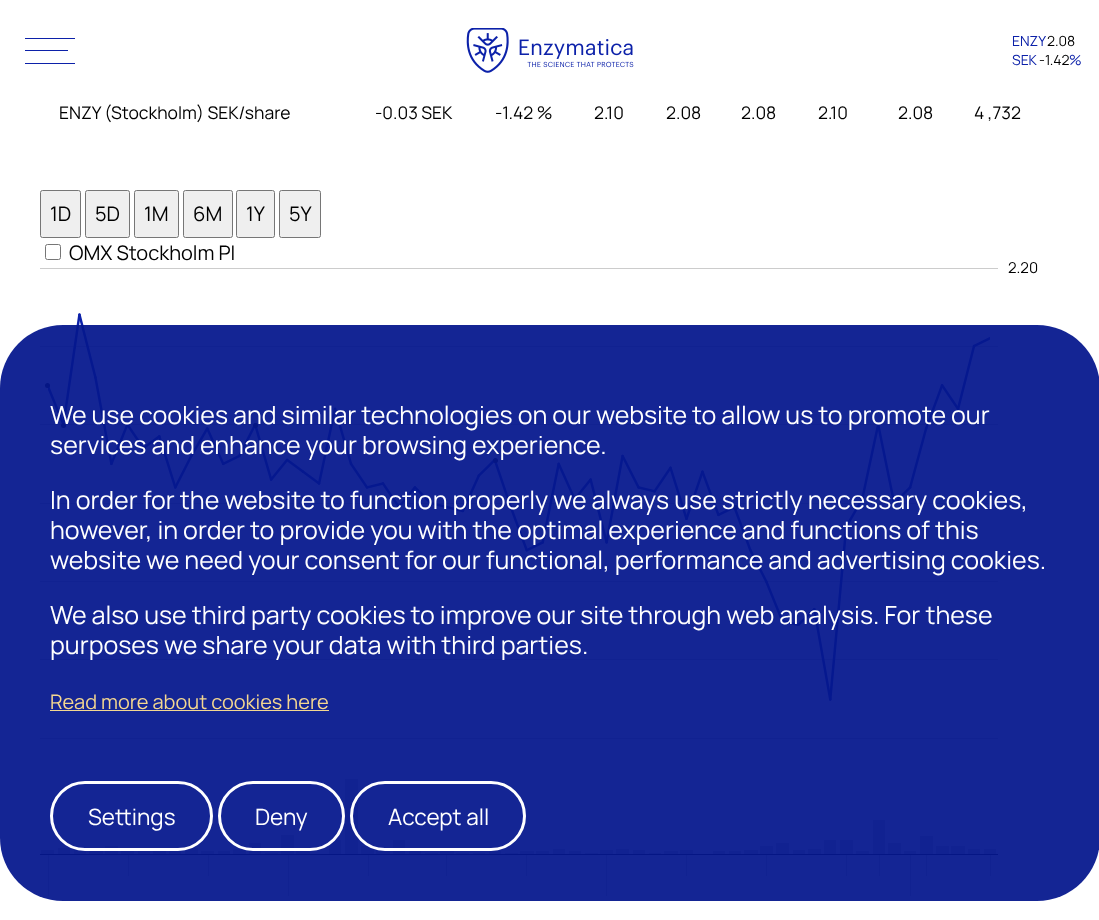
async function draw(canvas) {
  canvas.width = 1099
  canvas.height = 920
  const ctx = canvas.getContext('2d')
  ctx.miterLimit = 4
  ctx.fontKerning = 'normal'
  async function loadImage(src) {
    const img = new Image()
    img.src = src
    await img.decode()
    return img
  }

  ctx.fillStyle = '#fff'
  ctx.fillRect(0, 0, 1099, 920)
  ctx.fillStyle = '#0c21a9'
  ctx.fillRect(25, 38, 50, 1)
  ctx.fillRect(25, 63, 50, 1)
  ctx.fillRect(25, 50, 43, 1)
  ctx.drawImage(await loadImage('image0.png'), 466, 28, 168, 45)
  ctx.font = '14px Manrope'
  ctx.fillText('ENZY', 1012, 46)
  ctx.fillStyle = '#000'
  ctx.fillText('2.08', 1047, 46)
  ctx.fillStyle = '#0c21a9'
  ctx.fillText('SEK', 1012, 65)
  ctx.fillStyle = '#000'
  ctx.fillText('-1.42', 1039, 65)
  ctx.fillStyle = '#0c21a9'
  ctx.fillText('%', 1069, 65)
  ctx.font = '17.5px Manrope'
  ctx.fillStyle = '#000'
  ctx.fillText('ENZY (Stockholm) SEK/share', 59, 119)
  ctx.fillText('-0.03 SEK', 375, 119)
  ctx.fillText('-1.42 %', 495, 119)
  ctx.fillText('2.10', 594, 119)
  ctx.fillText('2.08', 666, 119)
  ctx.fillText('2.08', 741, 119)
  ctx.fillText('2.10', 818, 119)
  ctx.fillText('2.08', 898, 119)
  ctx.fillText('4 ,732', 974, 119)
  ctx.fillStyle = '#efefef'
  ctx.beginPath()
  ctx.roundRect(40.5, 190.5, 40, 47, 2)
  ctx.fill()
  ctx.strokeStyle = '#767676'
  ctx.stroke()
  ctx.font = '20px Manrope'
  ctx.fillStyle = '#000'
  ctx.fillText('1D', 50, 221)
  ctx.fillStyle = '#efefef'
  ctx.beginPath()
  ctx.roundRect(85.5, 190.5, 44, 47, 2)
  ctx.fill()
  ctx.stroke()
  ctx.fillStyle = '#000'
  ctx.fillText('5D', 95, 221)
  ctx.fillStyle = '#efefef'
  ctx.beginPath()
  ctx.roundRect(134.5, 190.5, 44, 47, 2)
  ctx.fill()
  ctx.stroke()
  ctx.fillStyle = '#000'
  ctx.fillText('1M', 144, 221)
  ctx.fillStyle = '#efefef'
  ctx.beginPath()
  ctx.roundRect(183.5, 190.5, 49, 47, 2)
  ctx.fill()
  ctx.stroke()
  ctx.fillStyle = '#000'
  ctx.fillText('6M', 193, 221)
  ctx.fillStyle = '#efefef'
  ctx.beginPath()
  ctx.roundRect(236.5, 190.5, 38, 47, 2)
  ctx.fill()
  ctx.stroke()
  ctx.fillStyle = '#000'
  ctx.fillText('1Y', 246, 221)
  ctx.fillStyle = '#efefef'
  ctx.beginPath()
  ctx.roundRect(279.5, 190.5, 41, 47, 2)
  ctx.fill()
  ctx.stroke()
  ctx.fillStyle = '#000'
  ctx.fillText('5Y', 289, 221)
  ctx.beginPath()
  ctx.roundRect(45.5, 244.5, 15, 15, 2)
  ctx.stroke()
  ctx.fillText('OMX Stockholm PI', 69, 260)
  ctx.fillStyle = '#ccc'
  ctx.fillRect(40, 738, 958, 1)
  ctx.fillRect(40, 268, 958, 1)
  ctx.fillRect(40, 346, 958, 1)
  ctx.fillRect(40, 424, 958, 1)
  ctx.fillRect(40, 503, 958, 1)
  ctx.fillRect(40, 581, 958, 1)
  ctx.fillRect(40, 659, 958, 1)
  ctx.font = '15px Manrope'
  ctx.fillStyle = '#000'
  ctx.fillText('2.20', 1008, 273)
  ctx.drawImage(await loadImage('image1.png'), 48, 313, 942, 388)
  ctx.beginPath()
  ctx.arc(47.5, 385.5, 2.5, 0, 2 * Math.PI)
  ctx.fill()
  ctx.beginPath()
  ctx.arc(63.5, 425.5, 2.5, 0, 2 * Math.PI)
  ctx.fill()
  ctx.beginPath()
  ctx.arc(255.5, 425.5, 2.5, 0, 2 * Math.PI)
  ctx.fill()
  ctx.beginPath()
  ctx.arc(143.5, 448.5, 2.5, 0, 2 * Math.PI)
  ctx.fill()
  ctx.beginPath()
  ctx.arc(495.5, 460.5, 2.5, 0, 2 * Math.PI)
  ctx.fill()
  ctx.beginPath()
  ctx.arc(735.5, 507.5, 2.5, 0, 2 * Math.PI)
  ctx.fill()
  ctx.fillStyle = '#ccc'
  ctx.fillRect(41, 850, 13, 4)
  ctx.fillRect(58, 848, 12, 6)
  ctx.fillRect(74, 850, 12, 4)
  ctx.fillRect(89, 851, 14, 3)
  ctx.fillRect(105, 846, 13, 8)
  ctx.fillRect(121, 851, 13, 3)
  ctx.fillRect(138, 851, 12, 3)
  ctx.fillRect(153, 851, 13, 3)
  ctx.fillRect(169, 850, 12, 4)
  ctx.fillRect(185, 848, 13, 6)
  ctx.fillRect(201, 851, 13, 3)
  ctx.fillRect(218, 851, 12, 3)
  ctx.fillRect(233, 849, 13, 5)
  ctx.fillRect(249, 843, 12, 11)
  ctx.fillRect(265, 853, 13, 1)
  ctx.fillRect(281, 835, 13, 19)
  ctx.fillRect(296, 851, 14, 3)
  ctx.fillRect(329, 840, 12, 14)
  ctx.fillRect(345, 779, 13, 75)
  ctx.fillRect(361, 846, 13, 8)
  ctx.fillRect(376, 849, 14, 5)
  ctx.fillRect(393, 840, 12, 14)
  ctx.fillRect(409, 851, 12, 3)
  ctx.fillRect(425, 853, 13, 1)
  ctx.fillRect(440, 851, 14, 3)
  ctx.fillRect(456, 853, 13, 1)
  ctx.fillRect(473, 853, 12, 1)
  ctx.fillRect(489, 851, 12, 3)
  ctx.fillRect(505, 853, 13, 1)
  ctx.fillRect(520, 851, 14, 3)
  ctx.fillRect(536, 851, 13, 3)
  ctx.fillRect(553, 849, 12, 5)
  ctx.fillRect(569, 851, 12, 3)
  ctx.fillRect(585, 853, 13, 1)
  ctx.fillRect(600, 850, 13, 4)
  ctx.fillRect(616, 849, 13, 5)
  ctx.fillRect(633, 850, 12, 4)
  ctx.fillRect(649, 853, 12, 1)
  ctx.fillRect(664, 851, 14, 3)
  ctx.fillRect(680, 850, 13, 4)
  ctx.fillRect(713, 851, 12, 3)
  ctx.fillRect(729, 851, 12, 3)
  ctx.fillRect(744, 850, 14, 4)
  ctx.fillRect(760, 846, 13, 8)
  ctx.fillRect(776, 843, 13, 11)
  ctx.fillRect(793, 850, 12, 4)
  ctx.fillRect(808, 849, 13, 5)
  ctx.fillRect(824, 840, 12, 14)
  ctx.fillRect(840, 840, 13, 14)
  ctx.fillRect(856, 851, 13, 3)
  ctx.fillRect(873, 820, 12, 34)
  ctx.fillRect(888, 843, 13, 11)
  ctx.fillRect(904, 851, 12, 3)
  ctx.fillRect(920, 836, 13, 18)
  ctx.fillRect(936, 846, 13, 8)
  ctx.fillRect(951, 846, 14, 8)
  ctx.fillRect(968, 849, 12, 5)
  ctx.fillRect(984, 849, 12, 5)
  ctx.fillStyle = '#000'
  ctx.fillRect(40, 854, 958, 1)
  ctx.fillStyle = '#ccc'
  ctx.fillRect(48, 855, 1, 41)
  ctx.fillRect(128, 855, 1, 21)
  ctx.fillRect(208, 855, 1, 21)
  ctx.fillRect(288, 855, 1, 41)
  ctx.fillRect(368, 855, 1, 21)
  ctx.fillRect(446, 855, 1, 21)
  ctx.fillRect(526, 855, 1, 21)
  ctx.fillRect(606, 855, 1, 41)
  ctx.fillRect(686, 855, 1, 21)
  ctx.fillRect(766, 855, 1, 21)
  ctx.fillRect(846, 855, 1, 21)
  ctx.fillRect(879, 855, 1, 21)
  ctx.fillRect(910, 855, 1, 41)
  ctx.fillRect(926, 855, 1, 21)
  ctx.fillRect(990, 855, 1, 21)
  ctx.fillStyle = '#05178df0'
  ctx.beginPath()
  ctx.roundRect(0, 325, 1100, 576, 63)
  ctx.fill()
  ctx.font = '25px Manrope'
  ctx.fillStyle = '#fff'
  ctx.fillText('We use cookies and similar technologies on our website to allow us to promote our', 50, 424)
  ctx.fillText('services and enhance your browsing experience.', 50, 454)
  ctx.fillText('In order for the website to function properly we always use strictly necessary cookies,', 50, 509)
  ctx.fillText('however, in order to provide you with the optimal experience and functions of this', 50, 539)
  ctx.fillText('website we need your consent for our functional, performance and advertising cookies.', 50, 569)
  ctx.fillText('We also use third party cookies to improve our site through web analysis. For these', 50, 624)
  ctx.fillText('purposes we share your data with third parties.', 50, 654)
  ctx.font = '20px Manrope'
  ctx.fillStyle = '#f4d790'
  ctx.fillText('Read more about cookies here', 50, 709)
  ctx.fillRect(50, 710, 279, 1)
  ctx.beginPath()
  ctx.roundRect(51.5, 782.5, 160, 67, 33.5)
  ctx.strokeStyle = '#fff'
  ctx.lineWidth = 3
  ctx.stroke()
  ctx.font = '22.5px Manrope'
  ctx.fillStyle = '#fff'
  ctx.fillText('Settings', 88, 825)
  ctx.beginPath()
  ctx.roundRect(219.5, 782.5, 124, 67, 33.5)
  ctx.stroke()
  ctx.fillText('Deny', 255, 825)
  ctx.beginPath()
  ctx.roundRect(351.5, 782.5, 173, 67, 33.5)
  ctx.stroke()
  ctx.fillText('Accept all', 388, 825)
}

draw(document.querySelector('canvas'))
